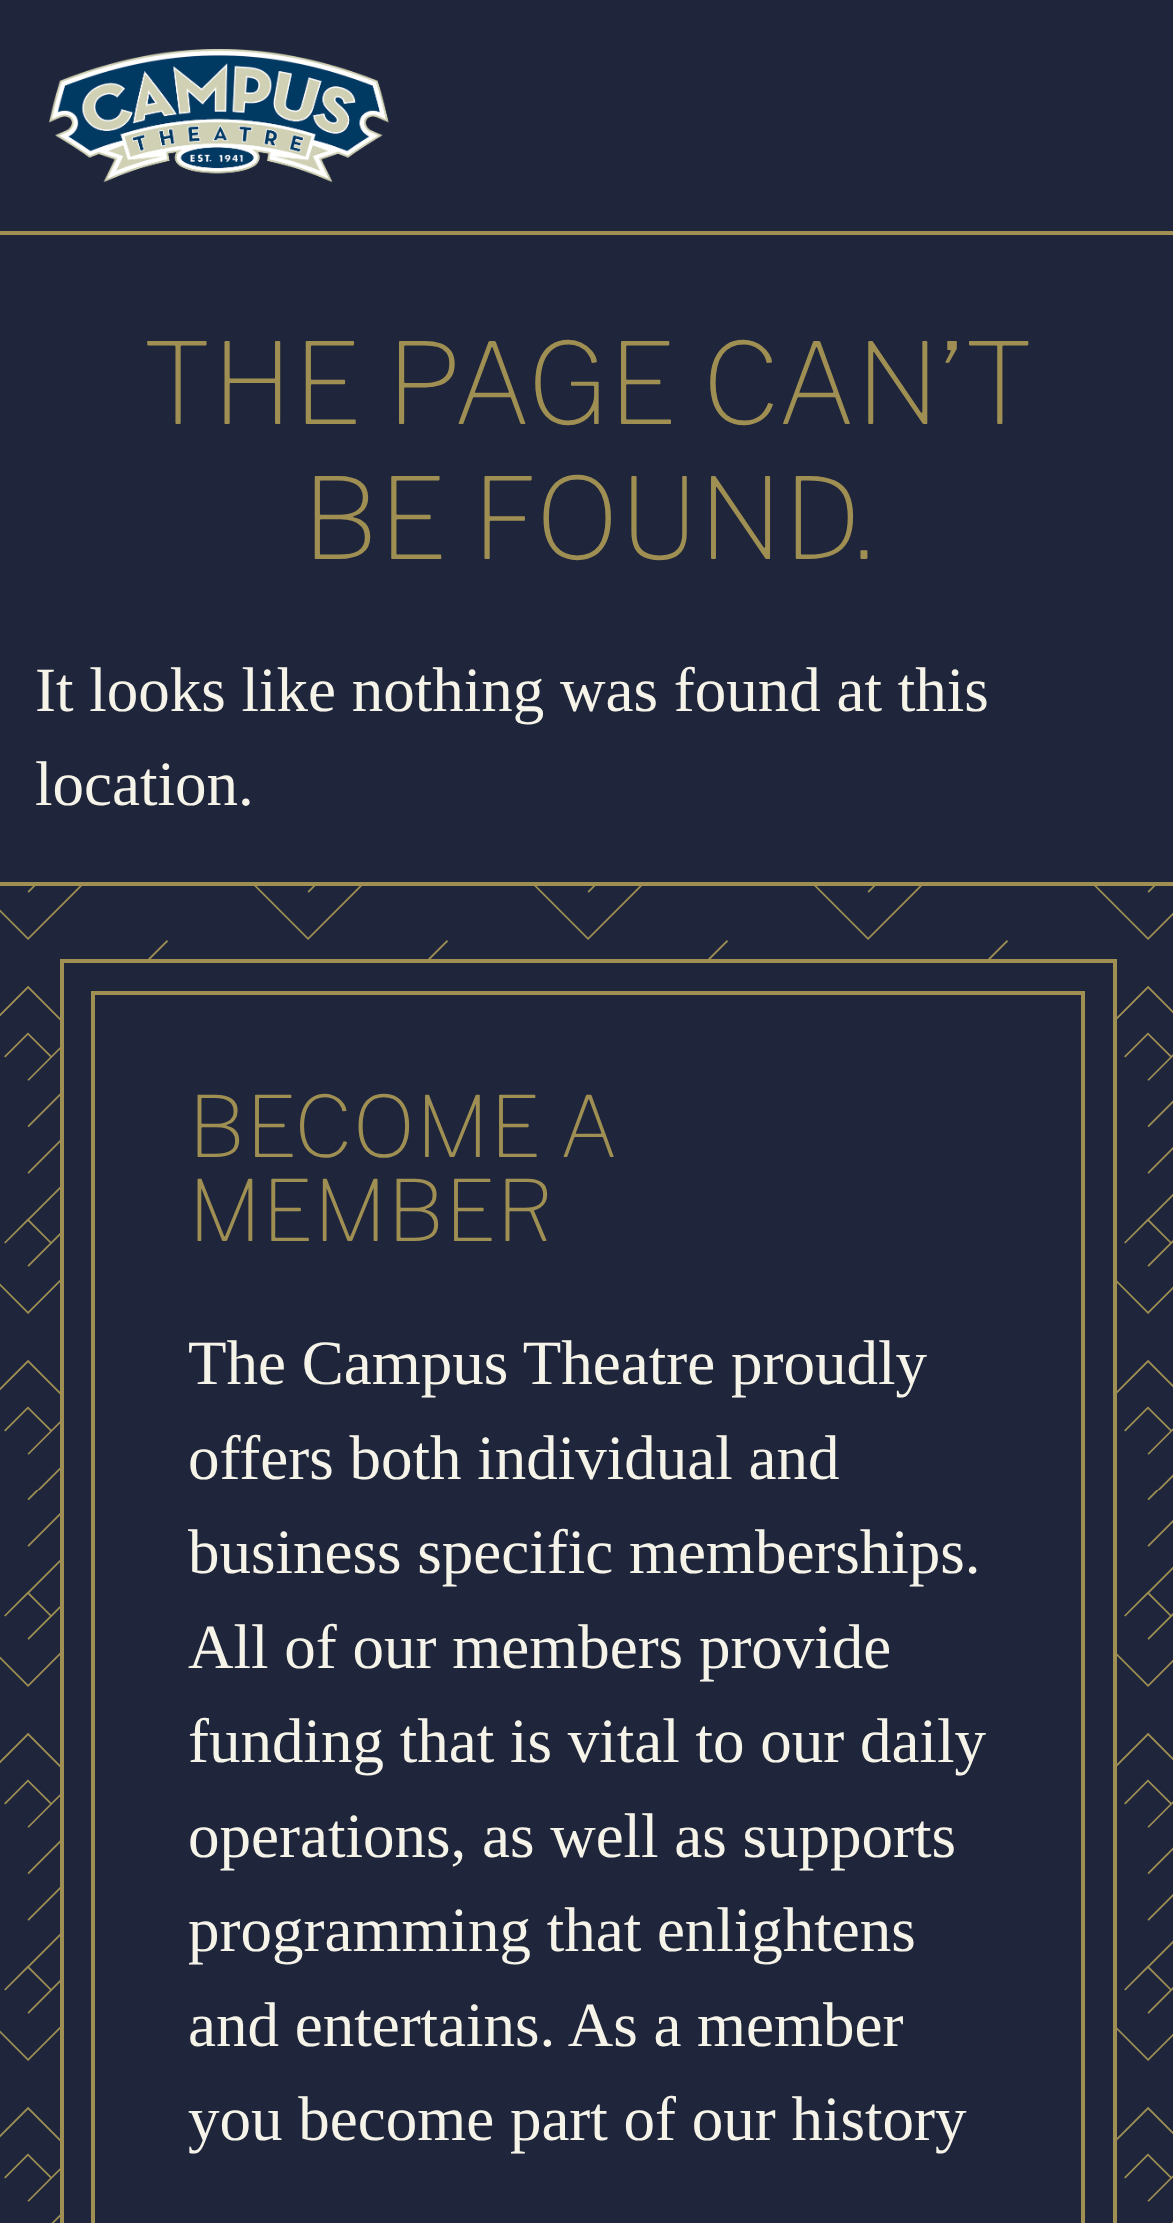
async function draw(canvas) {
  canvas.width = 1173
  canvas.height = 2223
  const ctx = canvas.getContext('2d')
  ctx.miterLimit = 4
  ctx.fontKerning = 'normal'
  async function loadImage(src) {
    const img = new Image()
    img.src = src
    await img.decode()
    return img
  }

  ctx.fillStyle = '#1f263b'
  ctx.fillRect(0, 0, 1173, 2223)
  ctx.fillStyle = '#9f8f53'
  ctx.fillRect(0, 231, 1173, 4)
  ctx.drawImage(await loadImage('image0.png'), 49, 49, 340, 134)
  ctx.font = '100 112px Libre Franklin'
  ctx.fillText('THE PAGE CAN’T', 142, 424)
  ctx.fillText('BE FOUND.', 302, 559)
  ctx.font = '63px Liberation Serif'
  ctx.fillStyle = '#f6f3e9'
  ctx.fillText('It looks like nothing was found at this', 35, 711)
  ctx.fillText('location.', 35, 805)
  ctx.fillStyle = '#9f8f53'
  ctx.fillRect(0, 882, 1173, 4)
  ctx.drawImage(await loadImage('image1.png'), 0, 886, 1173, 1337)
  ctx.fillStyle = '#1f263b'
  ctx.beginPath()
  ctx.rect(62, 961, 1053, 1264)
  ctx.fill()
  ctx.strokeStyle = '#9f8f53'
  ctx.lineWidth = 4
  ctx.stroke()
  ctx.strokeRect(93, 993, 990, 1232)
  ctx.font = '100 84px Libre Franklin'
  ctx.fillStyle = '#9f8f53'
  ctx.fillText('BECOME A', 188, 1157)
  ctx.fillText('MEMBER', 188, 1241)
  ctx.font = '63px Liberation Serif'
  ctx.fillStyle = '#f6f3e9'
  ctx.fillText('The Campus Theatre proudly', 188, 1384)
  ctx.fillText('offers both individual and', 188, 1479)
  ctx.fillText('business specific memberships.', 188, 1573)
  ctx.fillText('All of our members provide', 188, 1668)
  ctx.fillText('funding that is vital to our daily', 188, 1762)
  ctx.fillText('operations, as well as supports', 188, 1857)
  ctx.fillText('programming that enlightens', 188, 1951)
  ctx.fillText('and entertains. As a member', 188, 2046)
  ctx.fillText('you become part of our history', 188, 2140)
}

draw(document.querySelector('canvas'))
